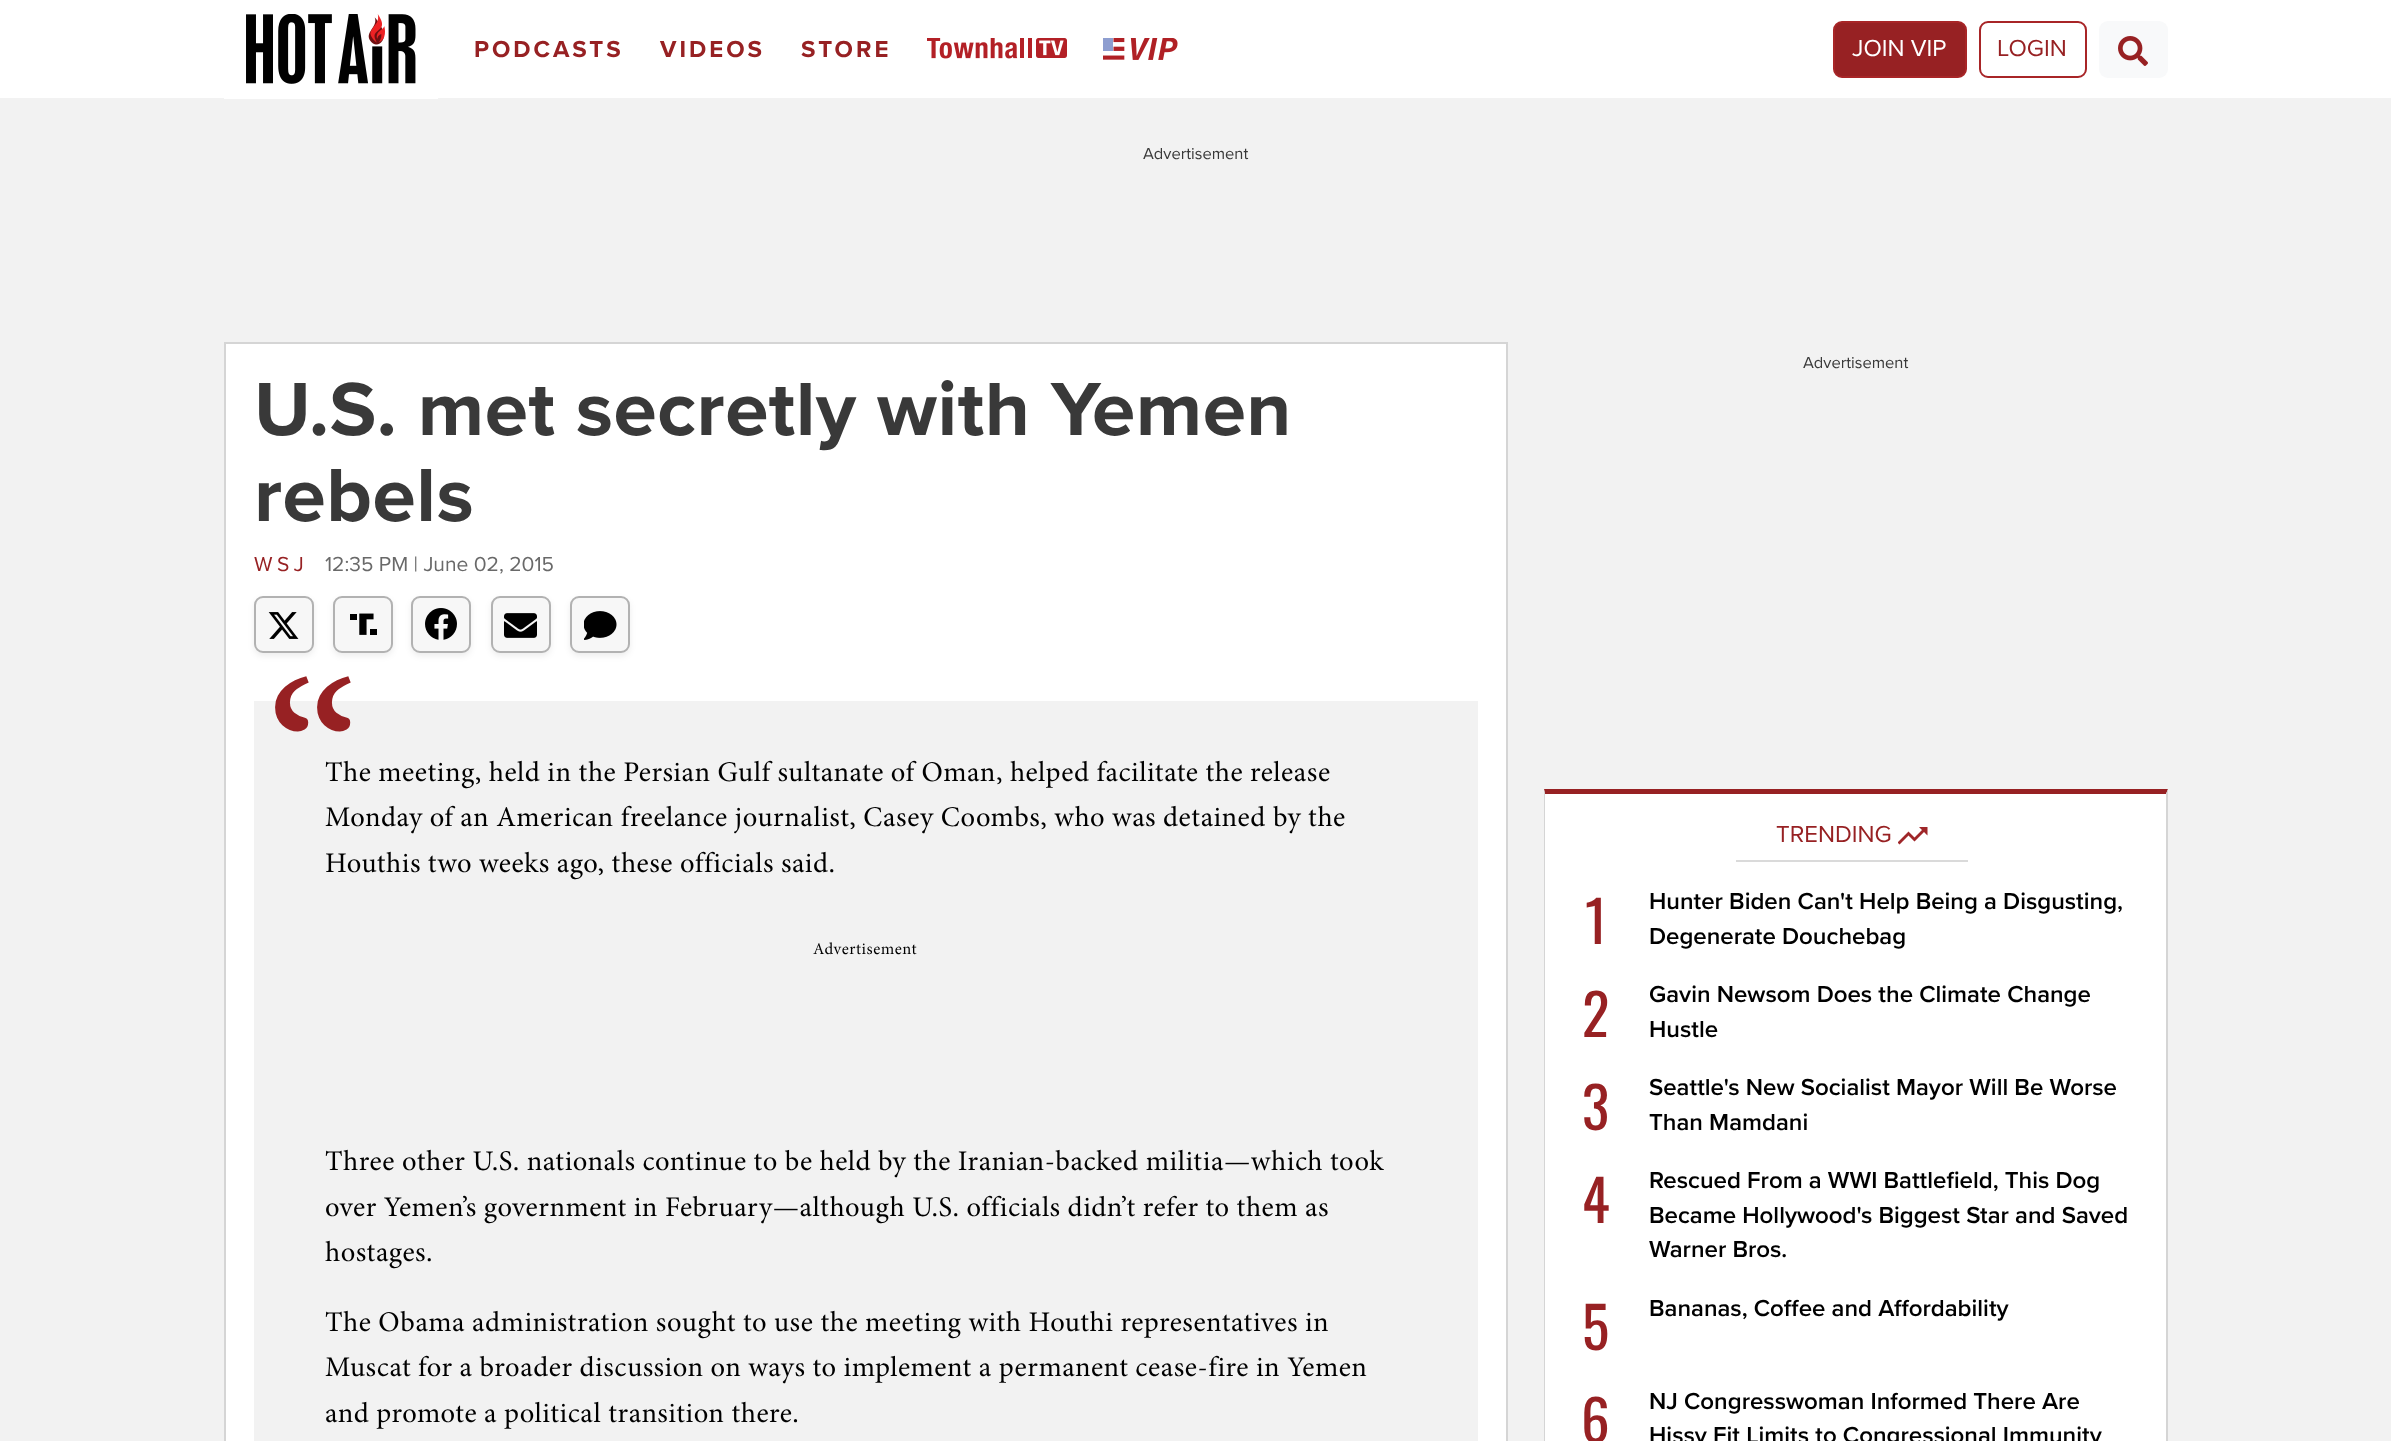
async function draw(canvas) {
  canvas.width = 2391
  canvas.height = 1441
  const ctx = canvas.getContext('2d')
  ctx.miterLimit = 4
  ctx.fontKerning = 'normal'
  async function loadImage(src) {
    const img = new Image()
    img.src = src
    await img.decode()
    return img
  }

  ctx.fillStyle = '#f2f2f2'
  ctx.fillRect(0, 0, 2391, 1441)
  ctx.fillStyle = '#fff'
  ctx.fillRect(0, 0, 2391, 98)
  ctx.drawImage(await loadImage('image0.png'), 246, 14, 170, 70)
  ctx.fillRect(224, 98, 214, 1)
  ctx.letterSpacing = '3px'
  ctx.font = 'bold 24px Proxima Nova'
  ctx.fillStyle = '#972123'
  ctx.fillText('PODCASTS', 474, 57)
  ctx.fillText('VIDEOS', 660, 57)
  ctx.fillText('STORE', 801, 57)
  ctx.drawImage(await loadImage('image1.png'), 927, 38, 140, 21)
  ctx.drawImage(await loadImage('image2.png'), 1103, 38, 75, 22)
  ctx.beginPath()
  ctx.roundRect(1834, 22, 132, 55, 8)
  ctx.fill()
  ctx.strokeStyle = '#a82527'
  ctx.lineWidth = 2
  ctx.stroke()
  ctx.letterSpacing = '0px'
  ctx.font = '24px Proxima Nova'
  ctx.fillStyle = '#fff'
  ctx.fillText('JOIN VIP', 1852, 56)
  ctx.beginPath()
  ctx.roundRect(1980, 22, 106, 55, 8)
  ctx.stroke()
  ctx.fillStyle = '#972123'
  ctx.fillText('LOGIN', 1997, 56)
  ctx.fillStyle = '#f8f9fa'
  ctx.beginPath()
  ctx.roundRect(2099, 21, 69, 57, 9)
  ctx.fill()
  ctx.drawImage(await loadImage('image3.png'), 2118, 36, 30, 30)
  ctx.font = '16.5px Proxima Nova'
  ctx.fillStyle = '#393939'
  ctx.fillText('Advertisement', 1143, 159)
  ctx.fillStyle = '#fff'
  ctx.beginPath()
  ctx.rect(225, 343, 1282, 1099)
  ctx.fill()
  ctx.strokeStyle = '#d5d5d5'
  ctx.stroke()
  ctx.letterSpacing = '0.52px'
  ctx.font = 'bold 78px Proxima Nova'
  ctx.fillStyle = '#393939'
  ctx.fillText('U.S. met secretly with Yemen', 254, 435)
  ctx.fillText('rebels', 254, 521)
  ctx.letterSpacing = '4.5px'
  ctx.font = '21px Proxima Nova'
  ctx.fillStyle = '#972123'
  ctx.fillText('WSJ', 254, 571)
  ctx.letterSpacing = '0px'
  ctx.fillStyle = '#696969'
  ctx.fillText('12:35 PM | June 02, 2015', 325, 571)
  ctx.fillStyle = '#00000012'
  ctx.filter = 'blur(3px)'
  ctx.beginPath()
  ctx.roundRect(254, 599, 60, 57, 9)
  ctx.fill()
  ctx.filter = 'none'
  ctx.fillStyle = '#f7f7f7'
  ctx.beginPath()
  ctx.roundRect(255, 597, 58, 55, 8)
  ctx.fill()
  ctx.strokeStyle = '#b2b2b2'
  ctx.stroke()
  ctx.drawImage(await loadImage('image4.png'), 268, 612, 31, 27)
  ctx.fillStyle = '#00000012'
  ctx.filter = 'blur(3px)'
  ctx.beginPath()
  ctx.roundRect(333, 599, 60, 57, 9)
  ctx.fill()
  ctx.filter = 'none'
  ctx.fillStyle = '#f7f7f7'
  ctx.beginPath()
  ctx.roundRect(334, 597, 58, 55, 8)
  ctx.fill()
  ctx.stroke()
  ctx.drawImage(await loadImage('image5.png'), 350, 613, 27, 22)
  ctx.fillStyle = '#00000012'
  ctx.filter = 'blur(3px)'
  ctx.beginPath()
  ctx.roundRect(411, 599, 60, 57, 9)
  ctx.fill()
  ctx.filter = 'none'
  ctx.fillStyle = '#f7f7f7'
  ctx.beginPath()
  ctx.roundRect(412, 597, 58, 55, 8)
  ctx.fill()
  ctx.stroke()
  ctx.drawImage(await loadImage('image6.png'), 425, 608, 32, 32)
  ctx.fillStyle = '#00000012'
  ctx.filter = 'blur(3px)'
  ctx.beginPath()
  ctx.roundRect(491, 599, 60, 57, 9)
  ctx.fill()
  ctx.filter = 'none'
  ctx.fillStyle = '#f7f7f7'
  ctx.beginPath()
  ctx.roundRect(492, 597, 58, 55, 8)
  ctx.fill()
  ctx.stroke()
  ctx.drawImage(await loadImage('image7.png'), 504, 613, 33, 25)
  ctx.fillStyle = '#00000012'
  ctx.filter = 'blur(3px)'
  ctx.beginPath()
  ctx.roundRect(570, 599, 60, 57, 9)
  ctx.fill()
  ctx.filter = 'none'
  ctx.fillStyle = '#f7f7f7'
  ctx.beginPath()
  ctx.roundRect(571, 597, 58, 55, 8)
  ctx.fill()
  ctx.stroke()
  ctx.drawImage(await loadImage('image8.png'), 584, 611, 33, 29)
  ctx.fillStyle = '#f2f2f2'
  ctx.fillRect(254, 701, 1224, 740)
  ctx.letterSpacing = '0.52px'
  ctx.font = '240px Minion'
  ctx.fillStyle = '#972123'
  ctx.fillText('“', 265, 848)
  ctx.font = '28.5px Minion'
  ctx.fillStyle = '#000'
  ctx.fillText('The meeting, held in the Persian Gulf sultanate of Oman, helped facilitate the release', 325, 781)
  ctx.fillText('Monday of an American freelance journalist, Casey Coombs, who was detained by the', 325, 826)
  ctx.fillText('Houthis two weeks ago, these officials said.', 325, 872)
  ctx.font = '16.5px Minion'
  ctx.fillText('Advertisement', 813, 954)
  ctx.font = '28.5px Minion'
  ctx.fillText('Three other U.S. nationals continue to be held by the Iranian-backed militia—which took', 325, 1170)
  ctx.fillText('over Yemen’s government in February—although U.S. officials didn’t refer to them as', 325, 1216)
  ctx.fillText('hostages.', 325, 1261)
  ctx.fillText('The Obama administration sought to use the meeting with Houthi representatives in', 325, 1331)
  ctx.fillText('Muscat for a broader discussion on ways to implement a permanent cease-fire in Yemen', 325, 1376)
  ctx.fillText('and promote a political transition there.', 325, 1422)
  ctx.letterSpacing = '0px'
  ctx.font = '16.5px Proxima Nova'
  ctx.fillStyle = '#393939'
  ctx.fillText('Advertisement', 1803, 368)
  ctx.fillStyle = '#fff'
  ctx.fillRect(1545, 794, 621, 647)
  ctx.fillStyle = '#972123'
  ctx.beginPath()
  ctx.moveTo(1544, 789)
  ctx.lineTo(2168, 789)
  ctx.lineTo(2166, 794)
  ctx.lineTo(1545, 794)
  ctx.closePath()
  ctx.fill()
  ctx.fillStyle = '#d5d5d5'
  ctx.beginPath()
  ctx.moveTo(2168, 789)
  ctx.lineTo(2168, 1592)
  ctx.lineTo(2166, 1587)
  ctx.lineTo(2166, 794)
  ctx.closePath()
  ctx.fill()
  ctx.beginPath()
  ctx.moveTo(1544, 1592)
  ctx.lineTo(1544, 789)
  ctx.lineTo(1545, 794)
  ctx.lineTo(1545, 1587)
  ctx.closePath()
  ctx.fill()
  ctx.fillStyle = '#dadada'
  ctx.fillRect(1736, 860, 232, 2)
  ctx.font = '24px Proxima Nova'
  ctx.fillStyle = '#972123'
  ctx.fillText('TRENDING', 1776, 842)
  ctx.save()
  ctx.beginPath()
  ctx.rect(1898, 827, 30, 18)
  ctx.clip()
  ctx.fillStyle = '#9f2629'
  ctx.beginPath()
  ctx.moveTo(1918.5, 826.5)
  ctx.lineTo(1922, 830)
  ctx.lineTo(1914.5, 837.5)
  ctx.lineTo(1908.5, 831.5)
  ctx.lineTo(1897.5, 842.5)
  ctx.lineTo(1899.5, 844.5)
  ctx.lineTo(1908.5, 835.5)
  ctx.lineTo(1914.5, 841.5)
  ctx.lineTo(1924, 832)
  ctx.lineTo(1927.5, 835.5)
  ctx.lineTo(1927.5, 826.5)
  ctx.closePath()
  ctx.fill()
  ctx.restore()
  ctx.font = '57px Oswald'
  ctx.fillText('1', 1585, 944)
  ctx.font = '600 24px Proxima Nova'
  ctx.fillStyle = '#000'
  ctx.fillText('Hunter Biden Can\'t Help Being a Disgusting,', 1649, 909)
  ctx.fillText('Degenerate Douchebag', 1649, 944)
  ctx.font = '57px Oswald'
  ctx.fillStyle = '#972123'
  ctx.fillText('2', 1582, 1037)
  ctx.font = '600 24px Proxima Nova'
  ctx.fillStyle = '#000'
  ctx.fillText('Gavin Newsom Does the Climate Change', 1649, 1002)
  ctx.fillText('Hustle', 1649, 1037)
  ctx.font = '57px Oswald'
  ctx.fillStyle = '#972123'
  ctx.fillText('3', 1582, 1130)
  ctx.font = '600 24px Proxima Nova'
  ctx.fillStyle = '#000'
  ctx.fillText('Seattle\'s New Socialist Mayor Will Be Worse', 1649, 1095)
  ctx.fillText('Than Mamdani', 1649, 1130)
  ctx.font = '57px Oswald'
  ctx.fillStyle = '#972123'
  ctx.fillText('4', 1582, 1223)
  ctx.font = '600 24px Proxima Nova'
  ctx.fillStyle = '#000'
  ctx.fillText('Rescued From a WWI Battlefield, This Dog', 1649, 1188)
  ctx.fillText('Became Hollywood\'s Biggest Star and Saved', 1649, 1223)
  ctx.fillText('Warner Bros.', 1649, 1257)
  ctx.font = '57px Oswald'
  ctx.fillStyle = '#972123'
  ctx.fillText('5', 1582, 1350)
  ctx.font = '600 24px Proxima Nova'
  ctx.fillStyle = '#000'
  ctx.fillText('Bananas, Coffee and Affordability', 1649, 1316)
  ctx.font = '57px Oswald'
  ctx.fillStyle = '#972123'
  ctx.fillText('6', 1581, 1443)
  ctx.font = '600 24px Proxima Nova'
  ctx.fillStyle = '#000'
  ctx.fillText('NJ Congresswoman Informed There Are', 1649, 1409)
  ctx.fillText('Hissy Fit Limits to Congressional Immunity', 1649, 1443)
}

draw(document.querySelector('canvas'))
